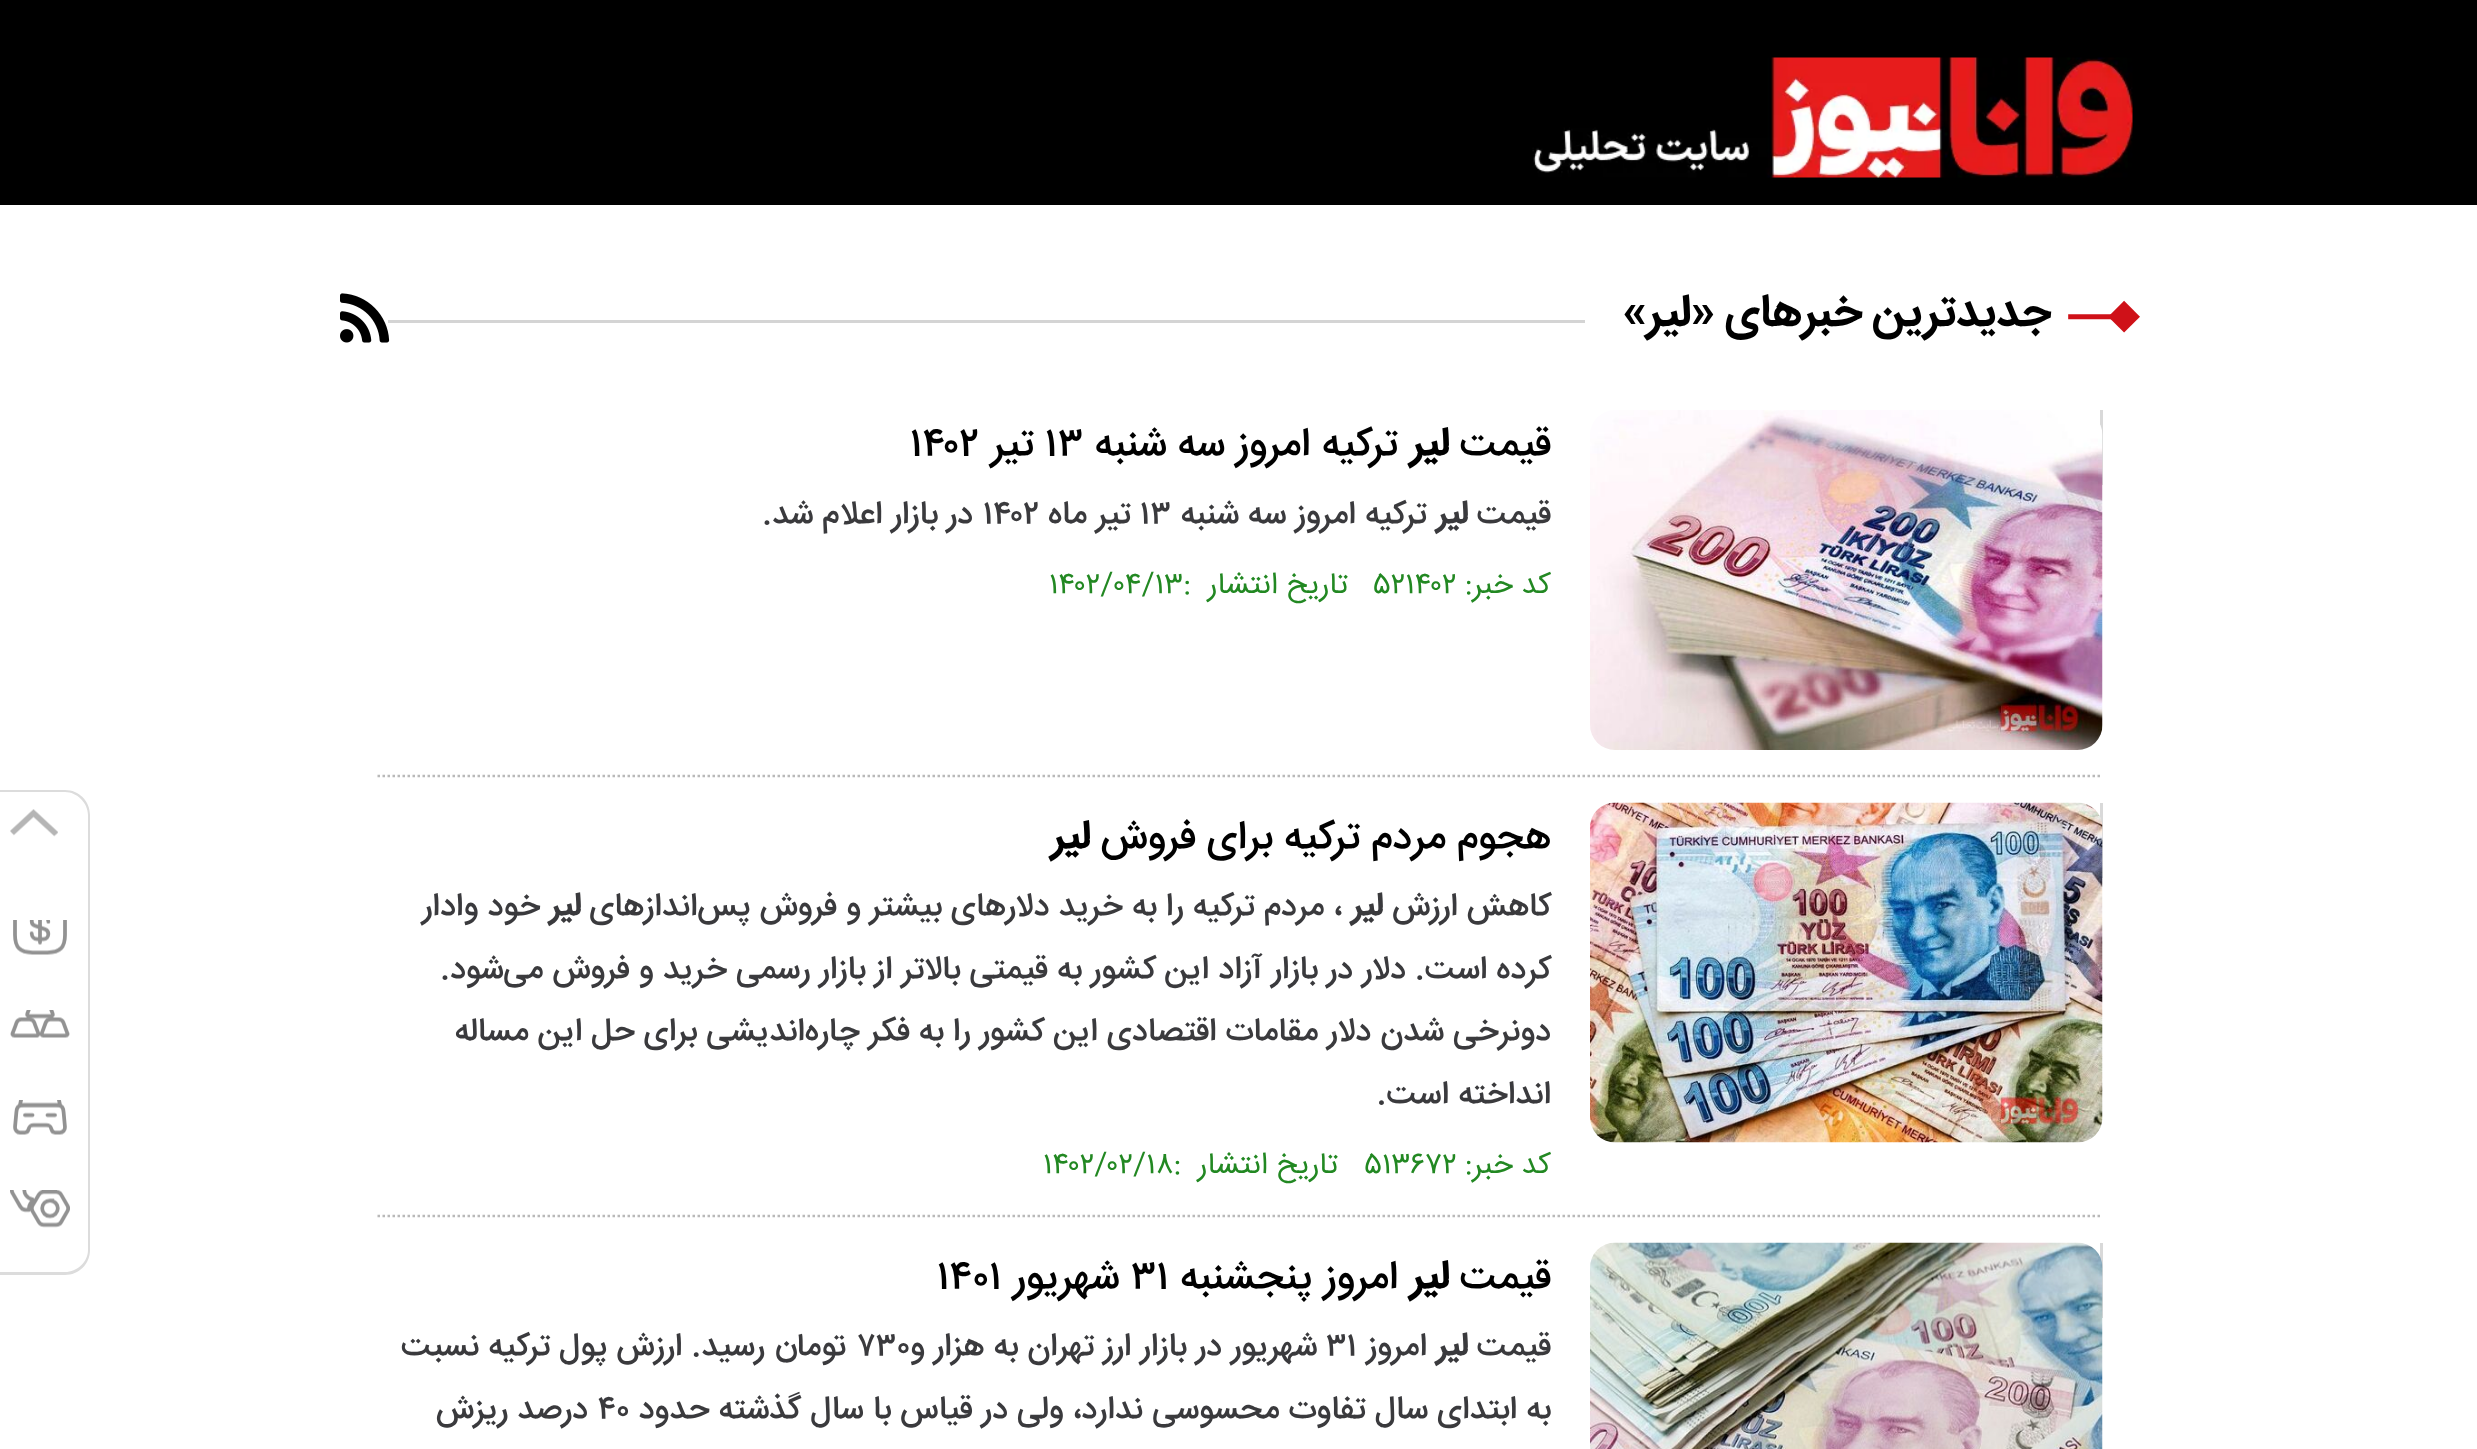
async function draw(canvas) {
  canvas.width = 2477
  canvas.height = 1449
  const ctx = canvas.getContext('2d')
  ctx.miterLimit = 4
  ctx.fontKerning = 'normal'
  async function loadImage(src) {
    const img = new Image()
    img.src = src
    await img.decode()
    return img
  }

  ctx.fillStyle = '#fff'
  ctx.fillRect(0, 0, 2477, 1449)
  ctx.fillStyle = '#000'
  ctx.fillRect(0, 0, 2477, 205)
  ctx.drawImage(await loadImage('image0.png'), 1532, 57, 601, 121)
  ctx.drawImage(await loadImage('image1.png'), 2068, 300, 72, 33)
  ctx.direction = 'rtl'
  ctx.font = 'bold 45px "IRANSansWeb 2"'
  ctx.fillText('جدیدترین خبرهای «لیر»', 2051, 325)
  ctx.fillStyle = '#d4d4d4'
  ctx.fillRect(388, 320, 1197, 3)
  ctx.drawImage(await loadImage('image2.png'), 340, 293, 50, 50)
  ctx.beginPath()
  ctx.moveTo(377.5, 776)
  ctx.lineTo(2102.5, 776)
  ctx.strokeStyle = '#b9b9b9'
  ctx.lineWidth = 2.5
  ctx.setLineDash([2.5, 2.5])
  ctx.stroke()
  ctx.fillStyle = '#d9d9d9'
  ctx.fillRect(2100, 410, 3, 75)
  ctx.drawImage(await loadImage('image3.png'), 1590, 410, 513, 340)
  ctx.font = '500 40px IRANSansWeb'
  ctx.fillStyle = '#000'
  ctx.fillText('قیمت', 1551, 455)
  ctx.font = 'bold 40px IRANSansWeb'
  ctx.fillText('لیر', 1449, 455)
  ctx.font = '500 40px IRANSansWeb'
  ctx.fillText('ترکیه امروز سه شنبه', 1398, 455)
  ctx.direction = 'ltr'
  ctx.fillText('۱۳', 1045, 455)
  ctx.direction = 'rtl'
  ctx.fillText('تیر', 1034, 455)
  ctx.direction = 'ltr'
  ctx.fillText('۱۴۰۲', 910, 455)
  ctx.direction = 'rtl'
  ctx.font = '500 32.5px IRANSansWeb'
  ctx.fillStyle = '#3a3a3d'
  ctx.fillText('قیمت', 1551, 523)
  ctx.font = 'bold 32.5px IRANSansWeb'
  ctx.fillText('لیر', 1468, 523)
  ctx.font = '500 32.5px IRANSansWeb'
  ctx.fillText('ترکیه امروز سه شنبه', 1427, 523)
  ctx.direction = 'ltr'
  ctx.fillText('۱۳', 1140, 523)
  ctx.direction = 'rtl'
  ctx.fillText('تیر ماه', 1131, 523)
  ctx.direction = 'ltr'
  ctx.fillText('۱۴۰۲', 983, 523)
  ctx.direction = 'rtl'
  ctx.fillText('در بازار اعلام شد.', 973, 523)
  ctx.font = '30px IRANSansWeb'
  ctx.fillStyle = '#282'
  ctx.fillText('کد خبر:', 1551, 593)
  ctx.direction = 'ltr'
  ctx.fillText('۵۲۱۴۰۲', 1374, 593)
  ctx.direction = 'rtl'
  ctx.fillText('تاریخ انتشار', 1348, 593)
  ctx.direction = 'ltr'
  ctx.fillText('۱۴۰۲/۰۴/۱۳:', 1049, 593)
  ctx.beginPath()
  ctx.moveTo(377.5, 1216)
  ctx.lineTo(2102.5, 1216)
  ctx.stroke()
  ctx.fillStyle = '#d9d9d9'
  ctx.fillRect(2100, 803, 3, 75)
  ctx.drawImage(await loadImage('image4.png'), 1590, 802, 513, 341)
  ctx.direction = 'rtl'
  ctx.font = '500 40px IRANSansWeb'
  ctx.fillStyle = '#000'
  ctx.fillText('هجوم مردم ترکیه برای فروش', 1551, 848)
  ctx.font = 'bold 40px IRANSansWeb'
  ctx.fillText('لیر', 1090, 848)
  ctx.font = '500 32.5px IRANSansWeb'
  ctx.fillStyle = '#3a3a3d'
  ctx.fillText('کاهش ارزش', 1551, 915)
  ctx.font = 'bold 32.5px IRANSansWeb'
  ctx.fillText('لیر', 1383, 915)
  ctx.font = '500 32.5px IRANSansWeb'
  ctx.fillText('، مردم ترکیه را به خرید دلارهای بیشتر و فروش پس‌اندازهای', 1342, 915)
  ctx.font = 'bold 32.5px IRANSansWeb'
  ctx.fillText('لیر', 581, 915)
  ctx.font = '500 32.5px IRANSansWeb'
  ctx.fillText('خود وادار', 540, 915)
  ctx.fillText('کرده است. دلار در بازار آزاد این کشور به قیمتی بالاتر از بازار رسمی خرید و فروش می‌شود.', 1551, 978)
  ctx.fillText('دونرخی شدن دلار مقامات اقتصادی این کشور را به فکر چاره‌اندیشی برای حل این مساله', 1551, 1040)
  ctx.fillText('انداخته است.', 1551, 1103)
  ctx.font = '30px IRANSansWeb'
  ctx.fillStyle = '#282'
  ctx.fillText('کد خبر:', 1551, 1173)
  ctx.direction = 'ltr'
  ctx.fillText('۵۱۳۶۷۲', 1364, 1173)
  ctx.direction = 'rtl'
  ctx.fillText('تاریخ انتشار', 1338, 1173)
  ctx.direction = 'ltr'
  ctx.fillText('۱۴۰۲/۰۲/۱۸:', 1043, 1173)
  ctx.fillStyle = '#d9d9d9'
  ctx.fillRect(2100, 1243, 3, 75)
  ctx.drawImage(await loadImage('image5.png'), 1590, 1242, 513, 207)
  ctx.direction = 'rtl'
  ctx.font = '500 40px IRANSansWeb'
  ctx.fillStyle = '#000'
  ctx.fillText('قیمت', 1551, 1288)
  ctx.font = 'bold 40px IRANSansWeb'
  ctx.fillText('لیر', 1449, 1288)
  ctx.font = '500 40px IRANSansWeb'
  ctx.fillText('امروز پنجشنبه', 1398, 1288)
  ctx.direction = 'ltr'
  ctx.fillText('۳۱', 1131, 1288)
  ctx.direction = 'rtl'
  ctx.fillText('شهریور', 1119, 1288)
  ctx.direction = 'ltr'
  ctx.fillText('۱۴۰۱', 937, 1288)
  ctx.direction = 'rtl'
  ctx.font = '500 32.5px IRANSansWeb'
  ctx.fillStyle = '#3a3a3d'
  ctx.fillText('قیمت', 1551, 1355)
  ctx.font = 'bold 32.5px IRANSansWeb'
  ctx.fillText('لیر', 1468, 1355)
  ctx.font = '500 32.5px IRANSansWeb'
  ctx.fillText('امروز', 1427, 1355)
  ctx.direction = 'ltr'
  ctx.fillText('۳۱', 1326, 1355)
  ctx.direction = 'rtl'
  ctx.fillText('شهریور در بازار ارز تهران به هزار و', 1317, 1355)
  ctx.direction = 'ltr'
  ctx.fillText('۷۳۰', 857, 1355)
  ctx.direction = 'rtl'
  ctx.fillText('تومان رسید. ارزش پول ترکیه نسبت', 847, 1355)
  ctx.fillText('به ابتدای سال تفاوت محسوسی ندارد، ولی در قیاس با سال گذشته حدود', 1551, 1418)
  ctx.direction = 'ltr'
  ctx.fillText('۴۰', 598, 1418)
  ctx.direction = 'rtl'
  ctx.fillText('درصد ریزش', 588, 1418)
  ctx.fillStyle = '#dcdcdc'
  ctx.beginPath()
  ctx.moveTo(0, 790)
  ctx.lineTo(65, 790)
  ctx.bezierCurveTo(79, 790, 90, 801, 90, 815)
  ctx.lineTo(90, 1250)
  ctx.bezierCurveTo(90, 1264, 79, 1275, 65, 1275)
  ctx.lineTo(0, 1275)
  ctx.closePath()
  ctx.moveTo(0, 792)
  ctx.lineTo(65, 792)
  ctx.bezierCurveTo(77, 792, 88, 803, 88, 815)
  ctx.lineTo(88, 1250)
  ctx.bezierCurveTo(88, 1262, 77, 1272, 65, 1272)
  ctx.lineTo(0, 1272)
  ctx.closePath()
  ctx.fill('evenodd')
  ctx.drawImage(await loadImage('image6.png'), 10, 809, 48, 28)
  ctx.drawImage(await loadImage('image7.png'), 13, 920, 54, 35)
  ctx.drawImage(await loadImage('image8.png'), 10, 1010, 60, 28)
  ctx.drawImage(await loadImage('image9.png'), 13, 1100, 54, 35)
  ctx.drawImage(await loadImage('image10.png'), 10, 1190, 60, 38)
}

draw(document.querySelector('canvas'))
